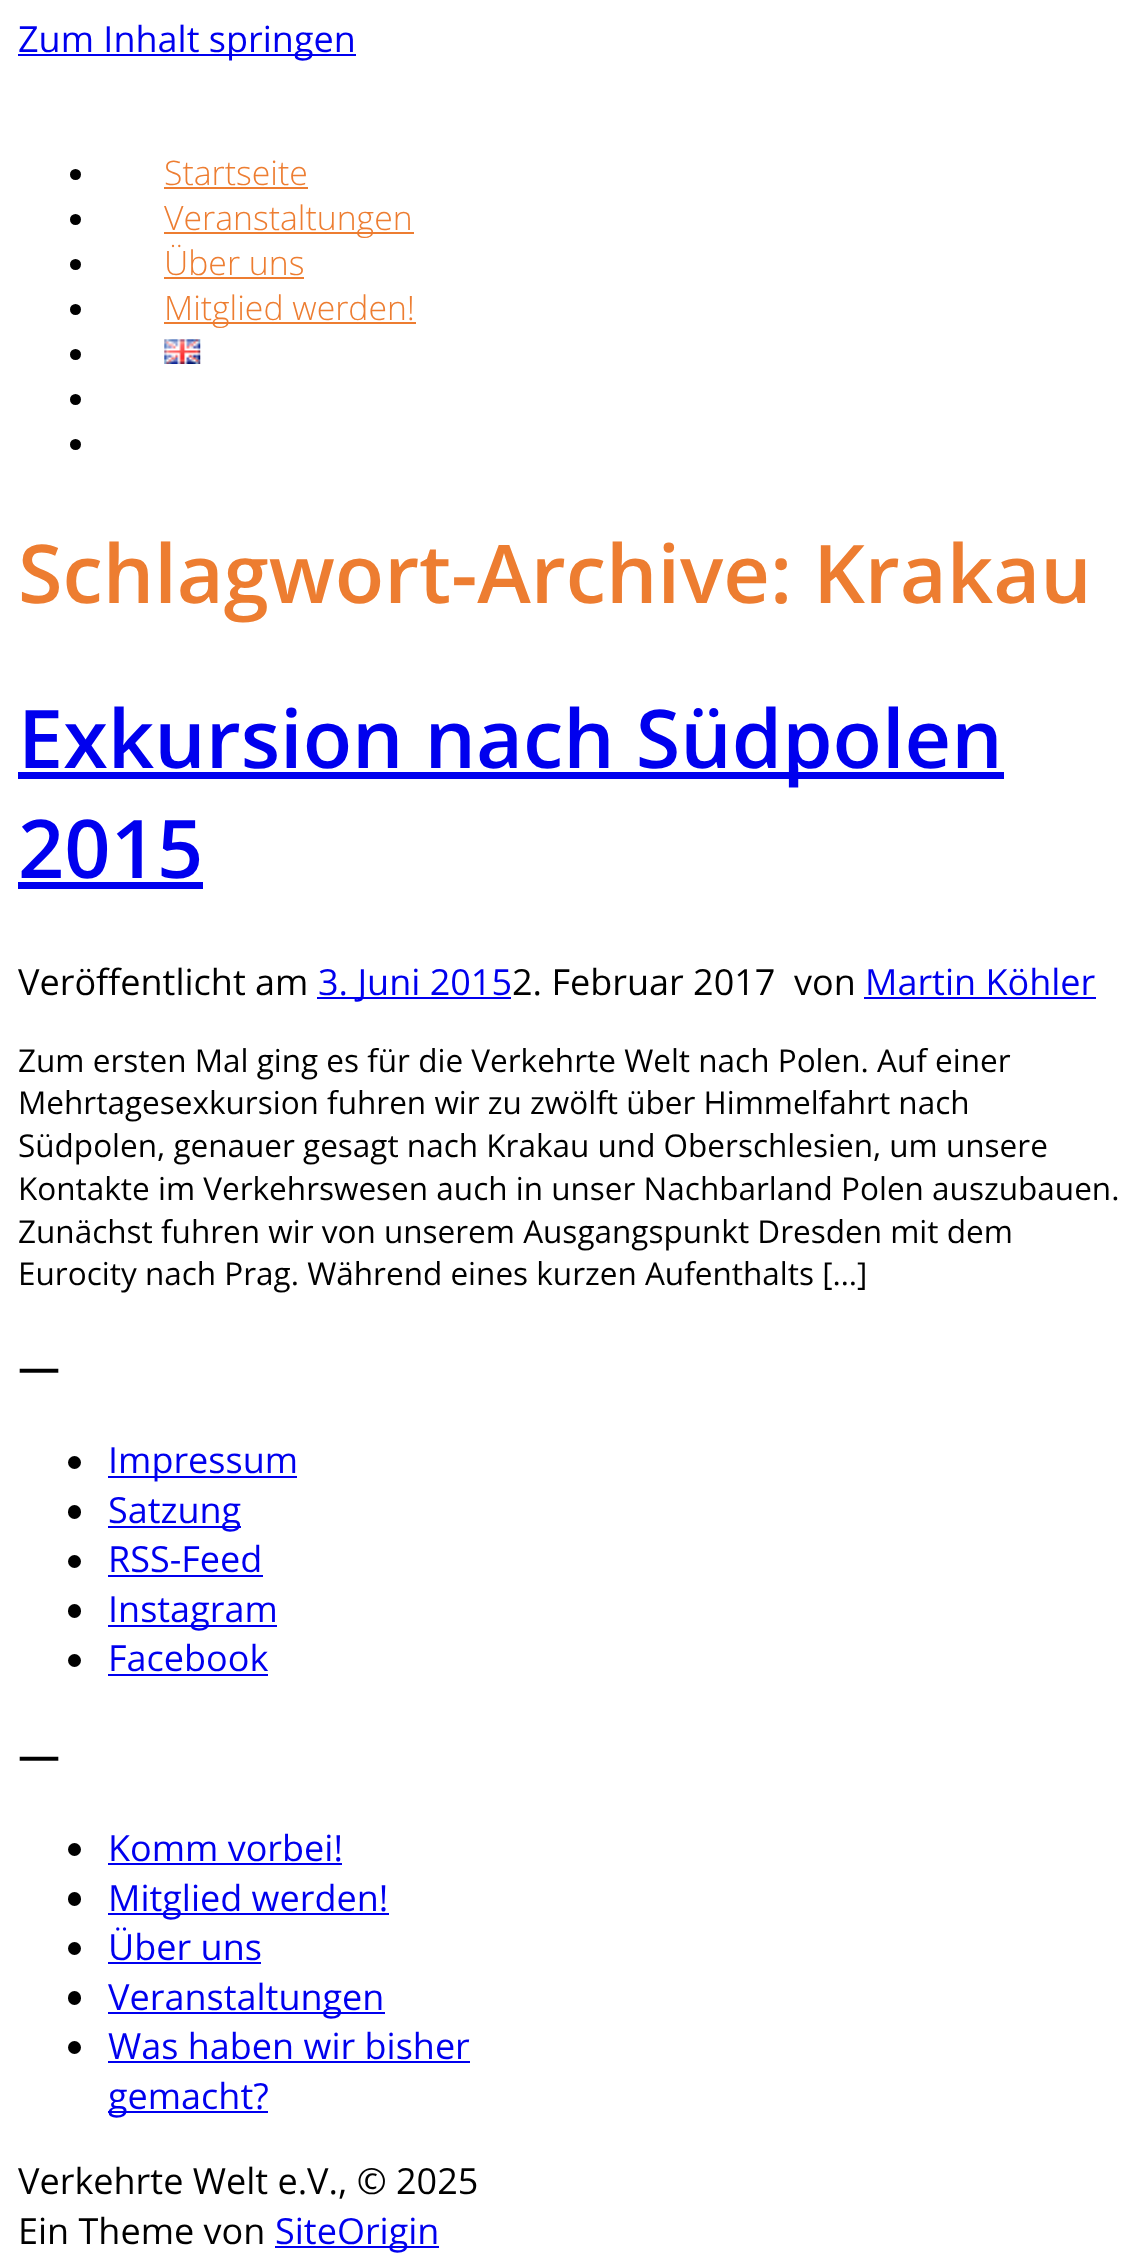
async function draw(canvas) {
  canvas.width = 1137
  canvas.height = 2262
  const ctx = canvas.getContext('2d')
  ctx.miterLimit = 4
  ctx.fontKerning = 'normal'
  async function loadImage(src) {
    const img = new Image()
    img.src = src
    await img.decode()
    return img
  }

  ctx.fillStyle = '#fff'
  ctx.fillRect(0, 0, 1137, 2262)
  ctx.fillStyle = '#00e'
  ctx.fillRect(18, 54, 338, 2)
  ctx.font = '36px Open Sans'
  ctx.fillText('Zum Inhalt springen', 18, 52)
  ctx.fillStyle = '#000'
  ctx.beginPath()
  ctx.arc(75.5, 174.5, 5.5, 0, 2 * Math.PI)
  ctx.fill()
  ctx.font = '300 33.75px Open Sans'
  ctx.fillStyle = '#ed7d31'
  ctx.fillText('Startseite', 164, 185)
  ctx.fillRect(164, 187, 144, 2)
  ctx.fillStyle = '#000'
  ctx.beginPath()
  ctx.arc(75.5, 219.5, 5.5, 0, 2 * Math.PI)
  ctx.fill()
  ctx.fillStyle = '#ed7d31'
  ctx.fillRect(164, 232, 250, 2)
  ctx.fillText('Veranstaltungen', 164, 230)
  ctx.fillStyle = '#000'
  ctx.beginPath()
  ctx.arc(75.5, 264.5, 5.5, 0, 2 * Math.PI)
  ctx.fill()
  ctx.fillStyle = '#ed7d31'
  ctx.fillText('Über uns', 164, 275)
  ctx.fillRect(164, 277, 140, 2)
  ctx.fillStyle = '#000'
  ctx.beginPath()
  ctx.arc(75.5, 309.5, 5.5, 0, 2 * Math.PI)
  ctx.fill()
  ctx.fillStyle = '#ed7d31'
  ctx.fillRect(164, 322, 252, 2)
  ctx.fillText('Mitglied werden!', 164, 320)
  ctx.fillStyle = '#000'
  ctx.beginPath()
  ctx.arc(75.5, 354.5, 5.5, 0, 2 * Math.PI)
  ctx.fill()
  ctx.drawImage(await loadImage('image0.png'), 164, 339, 37, 25)
  ctx.beginPath()
  ctx.arc(75.5, 399.5, 5.5, 0, 2 * Math.PI)
  ctx.fill()
  ctx.beginPath()
  ctx.arc(75.5, 444.5, 5.5, 0, 2 * Math.PI)
  ctx.fill()
  ctx.font = '600 81px Open Sans'
  ctx.fillStyle = '#ed7d31'
  ctx.fillText('Schlagwort-Archive: Krakau', 18, 603)
  ctx.fillStyle = '#00e'
  ctx.fillRect(18, 772, 986, 7)
  ctx.fillText('Exkursion nach Südpolen', 18, 768)
  ctx.fillText('2015', 18, 878)
  ctx.fillRect(18, 882, 185, 7)
  ctx.font = '36px Open Sans'
  ctx.fillStyle = '#000'
  ctx.fillText('Veröffentlicht am', 18, 995)
  ctx.fillStyle = '#00e'
  ctx.fillRect(317, 997, 194, 2)
  ctx.fillText('3. Juni 2015', 318, 995)
  ctx.fillStyle = '#000'
  ctx.fillText('2. Februar 2017', 512, 995)
  ctx.fillText('von', 794, 995)
  ctx.fillStyle = '#00e'
  ctx.fillText('Martin Köhler', 865, 995)
  ctx.fillRect(864, 997, 232, 2)
  ctx.font = '31.5px Open Sans'
  ctx.fillStyle = '#000'
  ctx.fillText('Zum ersten Mal ging es für die Verkehrte Welt nach Polen. Auf einer', 18, 1072)
  ctx.fillText('Mehrtagesexkursion fuhren wir zu zwölft über Himmelfahrt nach', 18, 1114)
  ctx.fillText('Südpolen, genauer gesagt nach Krakau und Oberschlesien, um unsere', 18, 1157)
  ctx.fillText('Kontakte im Verkehrswesen auch in unser Nachbarland Polen auszubauen.', 18, 1200)
  ctx.fillText('Zunächst fuhren wir von unserem Ausgangspunkt Dresden mit dem', 18, 1243)
  ctx.fillText('Eurocity nach Prag. Während eines kurzen Aufenthalts […]', 18, 1285)
  ctx.font = '600 42px Open Sans'
  ctx.fillText('—', 18, 1382)
  ctx.beginPath()
  ctx.arc(74.5, 1462.5, 6.5, 0, 2 * Math.PI)
  ctx.fill()
  ctx.fillStyle = '#00e'
  ctx.fillRect(108, 1476, 189, 2)
  ctx.font = '36px Open Sans'
  ctx.fillText('Impressum', 108, 1473)
  ctx.fillStyle = '#000'
  ctx.beginPath()
  ctx.roundRect(68, 1505, 13, 14, 6.5)
  ctx.fill()
  ctx.fillStyle = '#00e'
  ctx.fillRect(108, 1526, 133, 2)
  ctx.fillText('Satzung', 108, 1523)
  ctx.fillStyle = '#000'
  ctx.beginPath()
  ctx.arc(74.5, 1561.5, 6.5, 0, 2 * Math.PI)
  ctx.fill()
  ctx.fillStyle = '#00e'
  ctx.fillText('RSS-Feed', 108, 1572)
  ctx.fillRect(108, 1575, 155, 2)
  ctx.fillStyle = '#000'
  ctx.beginPath()
  ctx.roundRect(68, 1604, 13, 14, 6.5)
  ctx.fill()
  ctx.fillStyle = '#00e'
  ctx.fillRect(108, 1625, 169, 2)
  ctx.fillText('Instagram', 108, 1622)
  ctx.fillStyle = '#000'
  ctx.beginPath()
  ctx.arc(74.5, 1660.5, 6.5, 0, 2 * Math.PI)
  ctx.fill()
  ctx.fillStyle = '#00e'
  ctx.fillText('Facebook', 108, 1671)
  ctx.fillRect(108, 1674, 160, 2)
  ctx.font = '600 42px Open Sans'
  ctx.fillStyle = '#000'
  ctx.fillText('—', 18, 1770)
  ctx.beginPath()
  ctx.arc(74.5, 1849.5, 6.5, 0, 2 * Math.PI)
  ctx.fill()
  ctx.font = '36px Open Sans'
  ctx.fillStyle = '#00e'
  ctx.fillText('Komm vorbei!', 108, 1861)
  ctx.fillRect(108, 1863, 234, 2)
  ctx.fillStyle = '#000'
  ctx.beginPath()
  ctx.roundRect(68, 1892, 13, 14, 6.5)
  ctx.fill()
  ctx.fillStyle = '#00e'
  ctx.fillRect(108, 1913, 281, 2)
  ctx.fillText('Mitglied werden!', 108, 1911)
  ctx.fillStyle = '#000'
  ctx.beginPath()
  ctx.arc(74.5, 1948.5, 6.5, 0, 2 * Math.PI)
  ctx.fill()
  ctx.fillStyle = '#00e'
  ctx.fillText('Über uns', 108, 1960)
  ctx.fillRect(108, 1962, 153, 2)
  ctx.fillStyle = '#000'
  ctx.beginPath()
  ctx.roundRect(68, 1991, 13, 14, 6.5)
  ctx.fill()
  ctx.fillStyle = '#00e'
  ctx.fillRect(108, 2012, 277, 2)
  ctx.fillText('Veranstaltungen', 108, 2010)
  ctx.fillStyle = '#000'
  ctx.beginPath()
  ctx.arc(74.5, 2047.5, 6.5, 0, 2 * Math.PI)
  ctx.fill()
  ctx.fillStyle = '#00e'
  ctx.fillText('Was haben wir bisher', 108, 2059)
  ctx.fillRect(108, 2061, 362, 2)
  ctx.fillRect(108, 2111, 160, 2)
  ctx.fillText('gemacht?', 108, 2109)
  ctx.fillStyle = '#000'
  ctx.fillText('Verkehrte Welt e.V., © 2025', 18, 2194)
  ctx.fillText('Ein Theme von', 18, 2244)
  ctx.fillStyle = '#00e'
  ctx.fillRect(275, 2246, 164, 2)
  ctx.fillText('SiteOrigin', 275, 2244)
}

draw(document.querySelector('canvas'))
